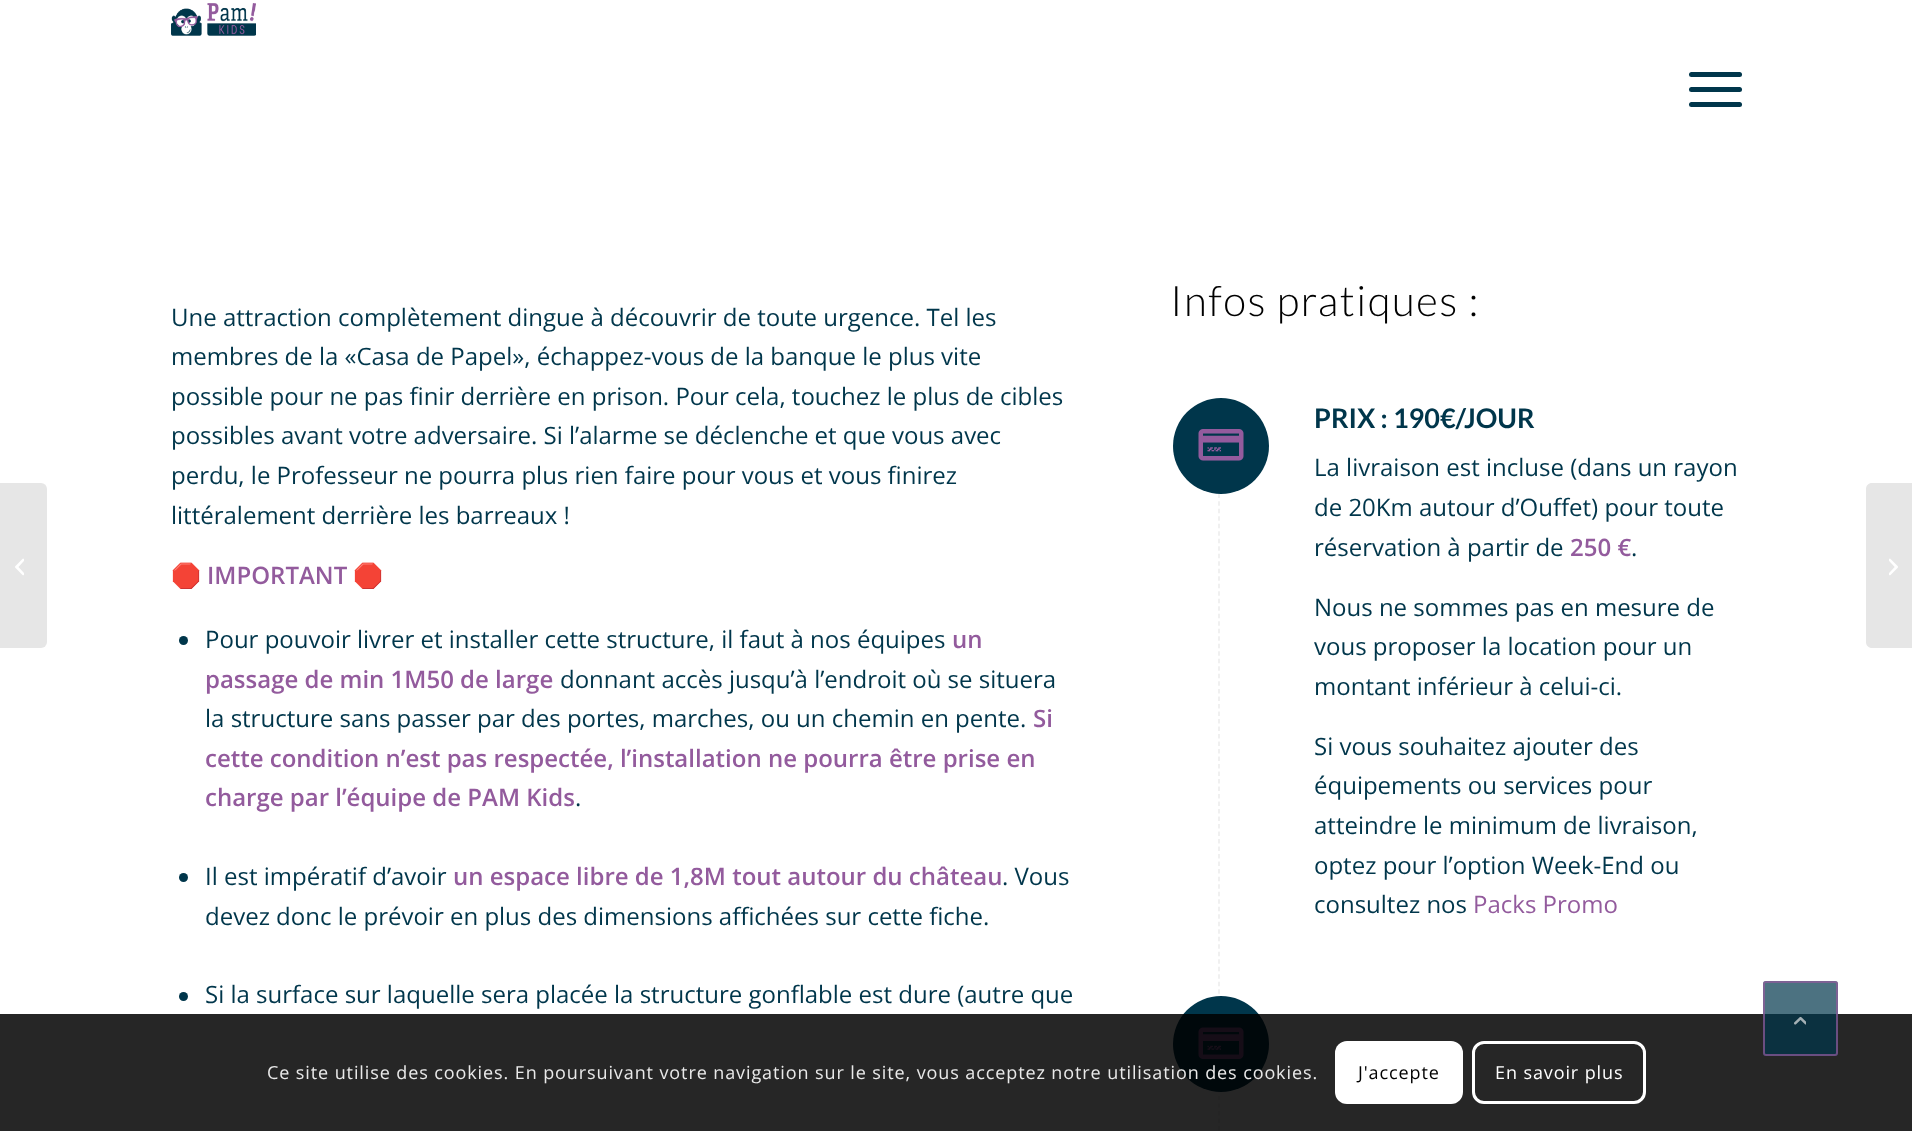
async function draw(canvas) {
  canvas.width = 1912
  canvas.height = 1131
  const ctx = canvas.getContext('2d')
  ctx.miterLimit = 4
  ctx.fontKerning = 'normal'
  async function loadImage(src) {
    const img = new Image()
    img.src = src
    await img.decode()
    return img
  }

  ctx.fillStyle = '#fff'
  ctx.fillRect(0, 0, 1912, 1131)
  ctx.drawImage(await loadImage('image0.png'), 171, 3, 85, 33)
  ctx.fillStyle = '#00364b'
  ctx.beginPath()
  ctx.roundRect(1689, 87, 53, 5, 2.5)
  ctx.fill()
  ctx.beginPath()
  ctx.roundRect(1689, 72, 53, 5, 2.5)
  ctx.fill()
  ctx.beginPath()
  ctx.roundRect(1689, 102, 53, 5, 2.5)
  ctx.fill()
  ctx.fillStyle = '#e6e6e6'
  ctx.beginPath()
  ctx.roundRect(0, 483, 47, 165, [0, 6, 6, 0])
  ctx.fill()
  ctx.drawImage(await loadImage('image1.png'), 15, 558, 9, 18)
  ctx.font = '24px Open Sans'
  ctx.fillStyle = '#00364b'
  ctx.fillText('Une attraction complètement dingue à découvrir de toute urgence. Tel les', 171, 326)
  ctx.fillText('membres de la «Casa de Papel», échappez-vous de la banque le plus vite', 171, 365)
  ctx.fillText('possible pour ne pas finir derrière en prison. Pour cela, touchez le plus de cibles', 171, 405)
  ctx.fillText('possibles avant votre adversaire. Si l’alarme se déclenche et que vous avec', 171, 444)
  ctx.fillText('perdu, le Professeur ne pourra plus rien faire pour vous et vous finirez', 171, 484)
  ctx.fillText('littéralement derrière les barreaux !', 171, 524)
  ctx.font = 'bold 24px Noto Color Emoji'
  ctx.fillStyle = '#935b9d'
  ctx.fillText('🛑', 171, 584)
  ctx.font = '600 24px Open Sans'
  ctx.fillText('IMPORTANT', 207, 584)
  ctx.font = 'bold 24px Noto Color Emoji'
  ctx.fillText('🛑', 353, 584)
  ctx.fillStyle = '#00364b'
  ctx.beginPath()
  ctx.arc(183.5, 640.5, 4.5, 0, 2 * Math.PI)
  ctx.fill()
  ctx.font = '24px Open Sans'
  ctx.fillText('Pour pouvoir livrer et installer cette structure, il faut à nos équipes', 205, 648)
  ctx.font = '600 24px Open Sans'
  ctx.fillStyle = '#935b9d'
  ctx.fillText('un', 952, 648)
  ctx.fillText('passage de min 1M50 de large', 205, 688)
  ctx.font = '24px Open Sans'
  ctx.fillStyle = '#00364b'
  ctx.fillText('donnant accès jusqu’à l’endroit où se situera', 560, 688)
  ctx.fillText('la structure sans passer par des portes, marches, ou un chemin en pente.', 205, 727)
  ctx.font = '600 24px Open Sans'
  ctx.fillStyle = '#935b9d'
  ctx.fillText('Si', 1033, 727)
  ctx.fillText('cette condition n’est pas respectée, l’installation ne pourra être prise en', 205, 767)
  ctx.fillText('charge par l’équipe de PAM Kids', 205, 806)
  ctx.font = '24px Open Sans'
  ctx.fillStyle = '#00364b'
  ctx.fillText('.', 575, 806)
  ctx.beginPath()
  ctx.arc(183.5, 877.5, 4.5, 0, 2 * Math.PI)
  ctx.fill()
  ctx.fillText('Il est impératif d’avoir', 205, 885)
  ctx.font = '600 24px Open Sans'
  ctx.fillStyle = '#935b9d'
  ctx.fillText('un espace libre de 1,8M tout autour du château', 453, 885)
  ctx.font = '24px Open Sans'
  ctx.fillStyle = '#00364b'
  ctx.fillText('. Vous', 1002, 885)
  ctx.fillText('devez donc le prévoir en plus des dimensions affichées sur cette fiche.', 205, 925)
  ctx.beginPath()
  ctx.arc(183.5, 996.5, 4.5, 0, 2 * Math.PI)
  ctx.fill()
  ctx.fillText('Si la surface sur laquelle sera placée la structure gonflable est dure (autre que', 205, 1003)
  ctx.letterSpacing = '1.5px'
  ctx.font = '300 42px Lato'
  ctx.fillStyle = '#000'
  ctx.fillText('Infos pratiques :', 1170, 316)
  ctx.beginPath()
  ctx.moveTo(1219, 403.5)
  ctx.lineTo(1219, 1002)
  ctx.strokeStyle = '#ebebeb'
  ctx.lineWidth = 1.5
  ctx.setLineDash([4.5, 3.01])
  ctx.stroke()
  ctx.fillStyle = '#00364b'
  ctx.beginPath()
  ctx.arc(1221, 446, 48, 0, 2 * Math.PI)
  ctx.fill()
  ctx.drawImage(await loadImage('image2.png'), 1198, 429, 46, 32)
  ctx.letterSpacing = '0px'
  ctx.font = 'bold 27px Lato'
  ctx.fillText('PRIX : 190€/JOUR', 1314, 428)
  ctx.font = '24px Open Sans'
  ctx.fillText('La livraison est incluse (dans un rayon', 1314, 476)
  ctx.fillText('de 20Km autour d’Ouffet) pour toute', 1314, 516)
  ctx.fillText('réservation à partir de', 1314, 556)
  ctx.font = '600 24px Open Sans'
  ctx.fillStyle = '#935b9d'
  ctx.fillText('250 €', 1570, 556)
  ctx.font = '24px Open Sans'
  ctx.fillStyle = '#00364b'
  ctx.fillText('.', 1631, 556)
  ctx.fillText('Nous ne sommes pas en mesure de', 1314, 616)
  ctx.fillText('vous proposer la location pour un', 1314, 655)
  ctx.fillText('montant inférieur à celui-ci.', 1314, 695)
  ctx.fillText('Si vous souhaitez ajouter des', 1314, 755)
  ctx.fillText('équipements ou services pour', 1314, 794)
  ctx.fillText('atteindre le minimum de livraison,', 1314, 834)
  ctx.fillText('optez pour l’option Week-End ou', 1314, 874)
  ctx.fillText('consultez nos', 1314, 913)
  ctx.fillStyle = '#935b9d'
  ctx.fillText('Packs Promo', 1473, 913)
  ctx.beginPath()
  ctx.moveTo(1219, 997.5)
  ctx.lineTo(1219, 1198.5)
  ctx.setLineDash([4.5, 3.06])
  ctx.stroke()
  ctx.fillStyle = '#00364b'
  ctx.beginPath()
  ctx.arc(1221, 1044, 48, 0, 2 * Math.PI)
  ctx.fill()
  ctx.drawImage(await loadImage('image3.png'), 1198, 1027, 46, 32)
  ctx.fillStyle = '#e6e6e6'
  ctx.beginPath()
  ctx.moveTo(1872, 483)
  ctx.lineTo(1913, 483)
  ctx.lineTo(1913, 648)
  ctx.lineTo(1872, 648)
  ctx.bezierCurveTo(1868.5, 648, 1866, 645.5, 1866, 642)
  ctx.lineTo(1866, 489)
  ctx.bezierCurveTo(1866, 485.5, 1868.5, 483, 1872, 483)
  ctx.closePath()
  ctx.fill()
  ctx.drawImage(await loadImage('image4.png'), 1889, 558, 9, 18)
  ctx.fillStyle = '#000000d9'
  ctx.fillRect(0, 1014, 1912, 117)
  ctx.fillStyle = '#00364bb3'
  ctx.beginPath()
  ctx.roundRect(1763, 981, 75, 75, 3)
  ctx.fill()
  ctx.beginPath()
  ctx.roundRect(1764, 982, 73, 73, 2)
  ctx.strokeStyle = '#935b9db3'
  ctx.lineWidth = 2
  ctx.setLineDash([])
  ctx.stroke()
  ctx.drawImage(await loadImage('image5.png'), 1794, 1016, 12, 9)
  ctx.letterSpacing = '0.9px'
  ctx.font = '18px Open Sans'
  ctx.fillStyle = '#e9e9e9'
  ctx.fillText('Ce site utilise des cookies. En poursuivant votre navigation sur le site, vous acceptez notre utilisation des cookies.', 267, 1079)
  ctx.fillStyle = '#fff'
  ctx.beginPath()
  ctx.roundRect(1335, 1041, 128, 63, 12)
  ctx.fill()
  ctx.fillStyle = '#000'
  ctx.fillText('J\'accepte', 1358, 1079)
  ctx.beginPath()
  ctx.roundRect(1473.5, 1042.5, 171, 60, 10.5)
  ctx.strokeStyle = '#fff'
  ctx.lineWidth = 3
  ctx.stroke()
  ctx.fillStyle = '#fff'
  ctx.fillText('En savoir plus', 1495, 1079)
}

draw(document.querySelector('canvas'))
